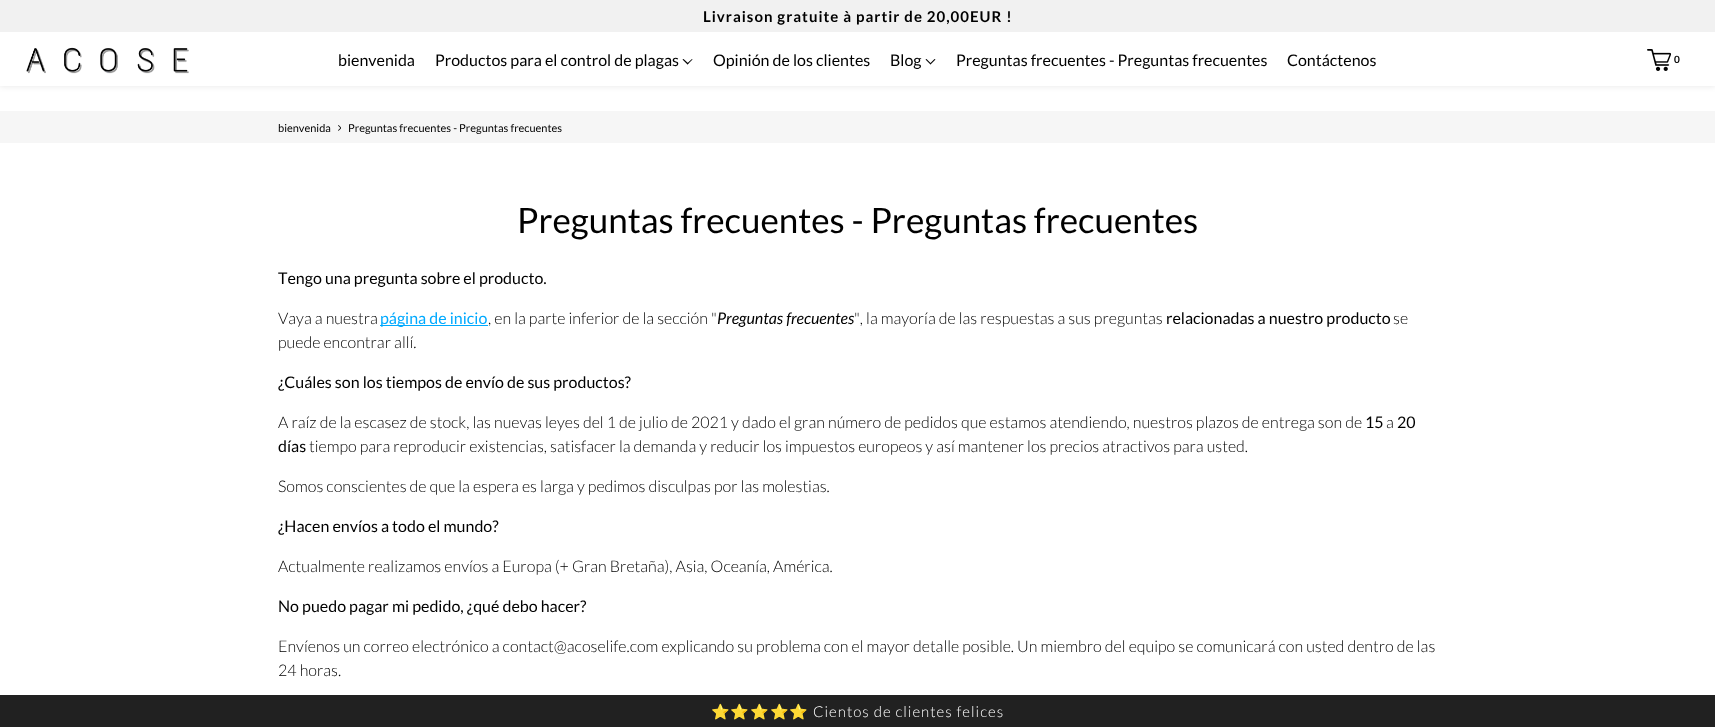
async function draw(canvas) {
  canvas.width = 1715
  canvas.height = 727
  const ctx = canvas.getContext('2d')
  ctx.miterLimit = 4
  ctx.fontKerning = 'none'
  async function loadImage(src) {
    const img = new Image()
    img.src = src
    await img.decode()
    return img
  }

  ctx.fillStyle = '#fff'
  ctx.fillRect(0, 0, 1715, 727)
  ctx.fillStyle = '#0000001a'
  ctx.filter = 'blur(3px)'
  ctx.beginPath()
  ctx.rect(0, 0, 1715, 86)
  ctx.fill()
  ctx.filter = 'none'
  ctx.fillStyle = '#fff'
  ctx.fillRect(0, 32, 1715, 54)
  ctx.fillStyle = '#f1f1f1'
  ctx.fillRect(0, 0, 1715, 32)
  ctx.letterSpacing = '1px'
  ctx.font = 'bold 15px Lato'
  ctx.fillStyle = '#000'
  ctx.fillText('Livraison gratuite à partir de 20,00EUR !', 703, 22)
  ctx.letterSpacing = '0px'
  ctx.font = '16px Lato'
  ctx.fillText('bienvenida', 338, 66)
  ctx.fillText('Productos para el control de plagas', 435, 66)
  ctx.beginPath()
  ctx.moveTo(692, 59)
  ctx.lineTo(692.5, 59.5)
  ctx.lineTo(687.5, 64.5)
  ctx.lineTo(687, 63.5)
  ctx.closePath()
  ctx.fill()
  ctx.beginPath()
  ctx.moveTo(683.5, 59)
  ctx.lineTo(688.5, 63.5)
  ctx.lineTo(687.5, 64.5)
  ctx.lineTo(682.5, 59.5)
  ctx.closePath()
  ctx.fill()
  ctx.fillText('Opinión de los clientes', 713, 66)
  ctx.fillText('Blog', 890, 66)
  ctx.beginPath()
  ctx.moveTo(934.5, 59)
  ctx.lineTo(935.5, 59.5)
  ctx.lineTo(930.5, 64.5)
  ctx.lineTo(930, 63.5)
  ctx.closePath()
  ctx.fill()
  ctx.beginPath()
  ctx.moveTo(926.5, 59)
  ctx.lineTo(931, 63.5)
  ctx.lineTo(930.5, 64.5)
  ctx.lineTo(925.5, 59.5)
  ctx.closePath()
  ctx.fill()
  ctx.fillText('Preguntas frecuentes - Preguntas frecuentes', 956, 66)
  ctx.fillText('Contáctenos', 1287, 66)
  ctx.drawImage(await loadImage('image0.png'), 26, 47, 163, 27)
  ctx.drawImage(await loadImage('image1.png'), 1647, 49, 24, 22)
  ctx.font = 'bold 10px Lato'
  ctx.fillText('0', 1674, 63)
  ctx.fillStyle = '#f6f6f6'
  ctx.fillRect(0, 111, 1715, 32)
  ctx.font = '11px Lato'
  ctx.fillStyle = '#000'
  ctx.fillText('bienvenida', 278, 132)
  ctx.drawImage(await loadImage('image2.png'), 338, 125, 3, 6)
  ctx.fillText('Preguntas frecuentes - Preguntas frecuentes', 348, 132)
  ctx.font = '35px Lato'
  ctx.fillText('Preguntas frecuentes - Preguntas frecuentes', 517, 233)
  ctx.font = '16px Lato'
  ctx.fillText('Tengo una pregunta sobre el producto.', 278, 284)
  ctx.font = '300 16px Lato'
  ctx.fillText('Vaya a nuestra', 278, 324)
  ctx.fillStyle = '#0af'
  ctx.fillRect(380, 325, 108, 1)
  ctx.font = '16px Lato'
  ctx.fillText('página de inicio', 380, 324)
  ctx.font = '300 16px Lato'
  ctx.fillStyle = '#000'
  ctx.fillText(', en la parte inferior de la sección "', 488, 324)
  ctx.font = 'italic 16px Lato'
  ctx.fillText('Preguntas frecuentes', 717, 324)
  ctx.font = '300 16px Lato'
  ctx.fillText('", la mayoría de las respuestas a sus preguntas', 854, 324)
  ctx.font = '16px Lato'
  ctx.fillText('relacionadas a nuestro producto', 1166, 324)
  ctx.font = '300 16px Lato'
  ctx.fillText('se', 1393, 324)
  ctx.fillText('puede encontrar allí.', 278, 348)
  ctx.font = '16px Lato'
  ctx.fillText('¿Cuáles son los tiempos de envío de sus productos?', 278, 388)
  ctx.font = '300 16px Lato'
  ctx.fillText('A raíz de la escasez de stock, las nuevas leyes del 1 de julio de 2021 y dado el gran número de pedidos que estamos atendiendo, nuestros plazos de entrega son de', 278, 428)
  ctx.font = '16px Lato'
  ctx.fillText('15', 1365, 428)
  ctx.font = '300 16px Lato'
  ctx.fillText('a', 1386, 428)
  ctx.font = '16px Lato'
  ctx.fillText('20', 1397, 428)
  ctx.fillText('días', 278, 452)
  ctx.font = '300 16px Lato'
  ctx.fillText('tiempo para reproducir existencias, satisfacer la demanda y reducir los impuestos europeos y así mantener los precios atractivos para usted.', 309, 452)
  ctx.fillText('Somos conscientes de que la espera es larga y pedimos disculpas por las molestias.', 278, 492)
  ctx.font = '16px Lato'
  ctx.fillText('¿Hacen envíos a todo el mundo?', 278, 532)
  ctx.font = '300 16px Lato'
  ctx.fillText('Actualmente realizamos envíos a Europa (+ Gran Bretaña), Asia, Oceanía, América.', 278, 572)
  ctx.font = '16px Lato'
  ctx.fillText('No puedo pagar mi pedido, ¿qué debo hacer?', 278, 612)
  ctx.font = '300 16px Lato'
  ctx.fillText('Envíenos un correo electrónico a contact@acoselife.com explicando su problema con el mayor detalle posible. Un miembro del equipo se comunicará con usted dentro de las', 278, 652)
  ctx.fillText('24 horas.', 278, 676)
  ctx.fillStyle = '#212121'
  ctx.fillRect(0, 695, 1715, 32)
  ctx.letterSpacing = '1px'
  ctx.font = '15px Noto Color Emoji'
  ctx.fillStyle = '#fff'
  ctx.fillText('⭐⭐⭐⭐⭐', 711, 717)
  ctx.font = '300 15px Lato'
  ctx.fillText('Cientos de clientes felices', 813, 717)
}

draw(document.querySelector('canvas'))
